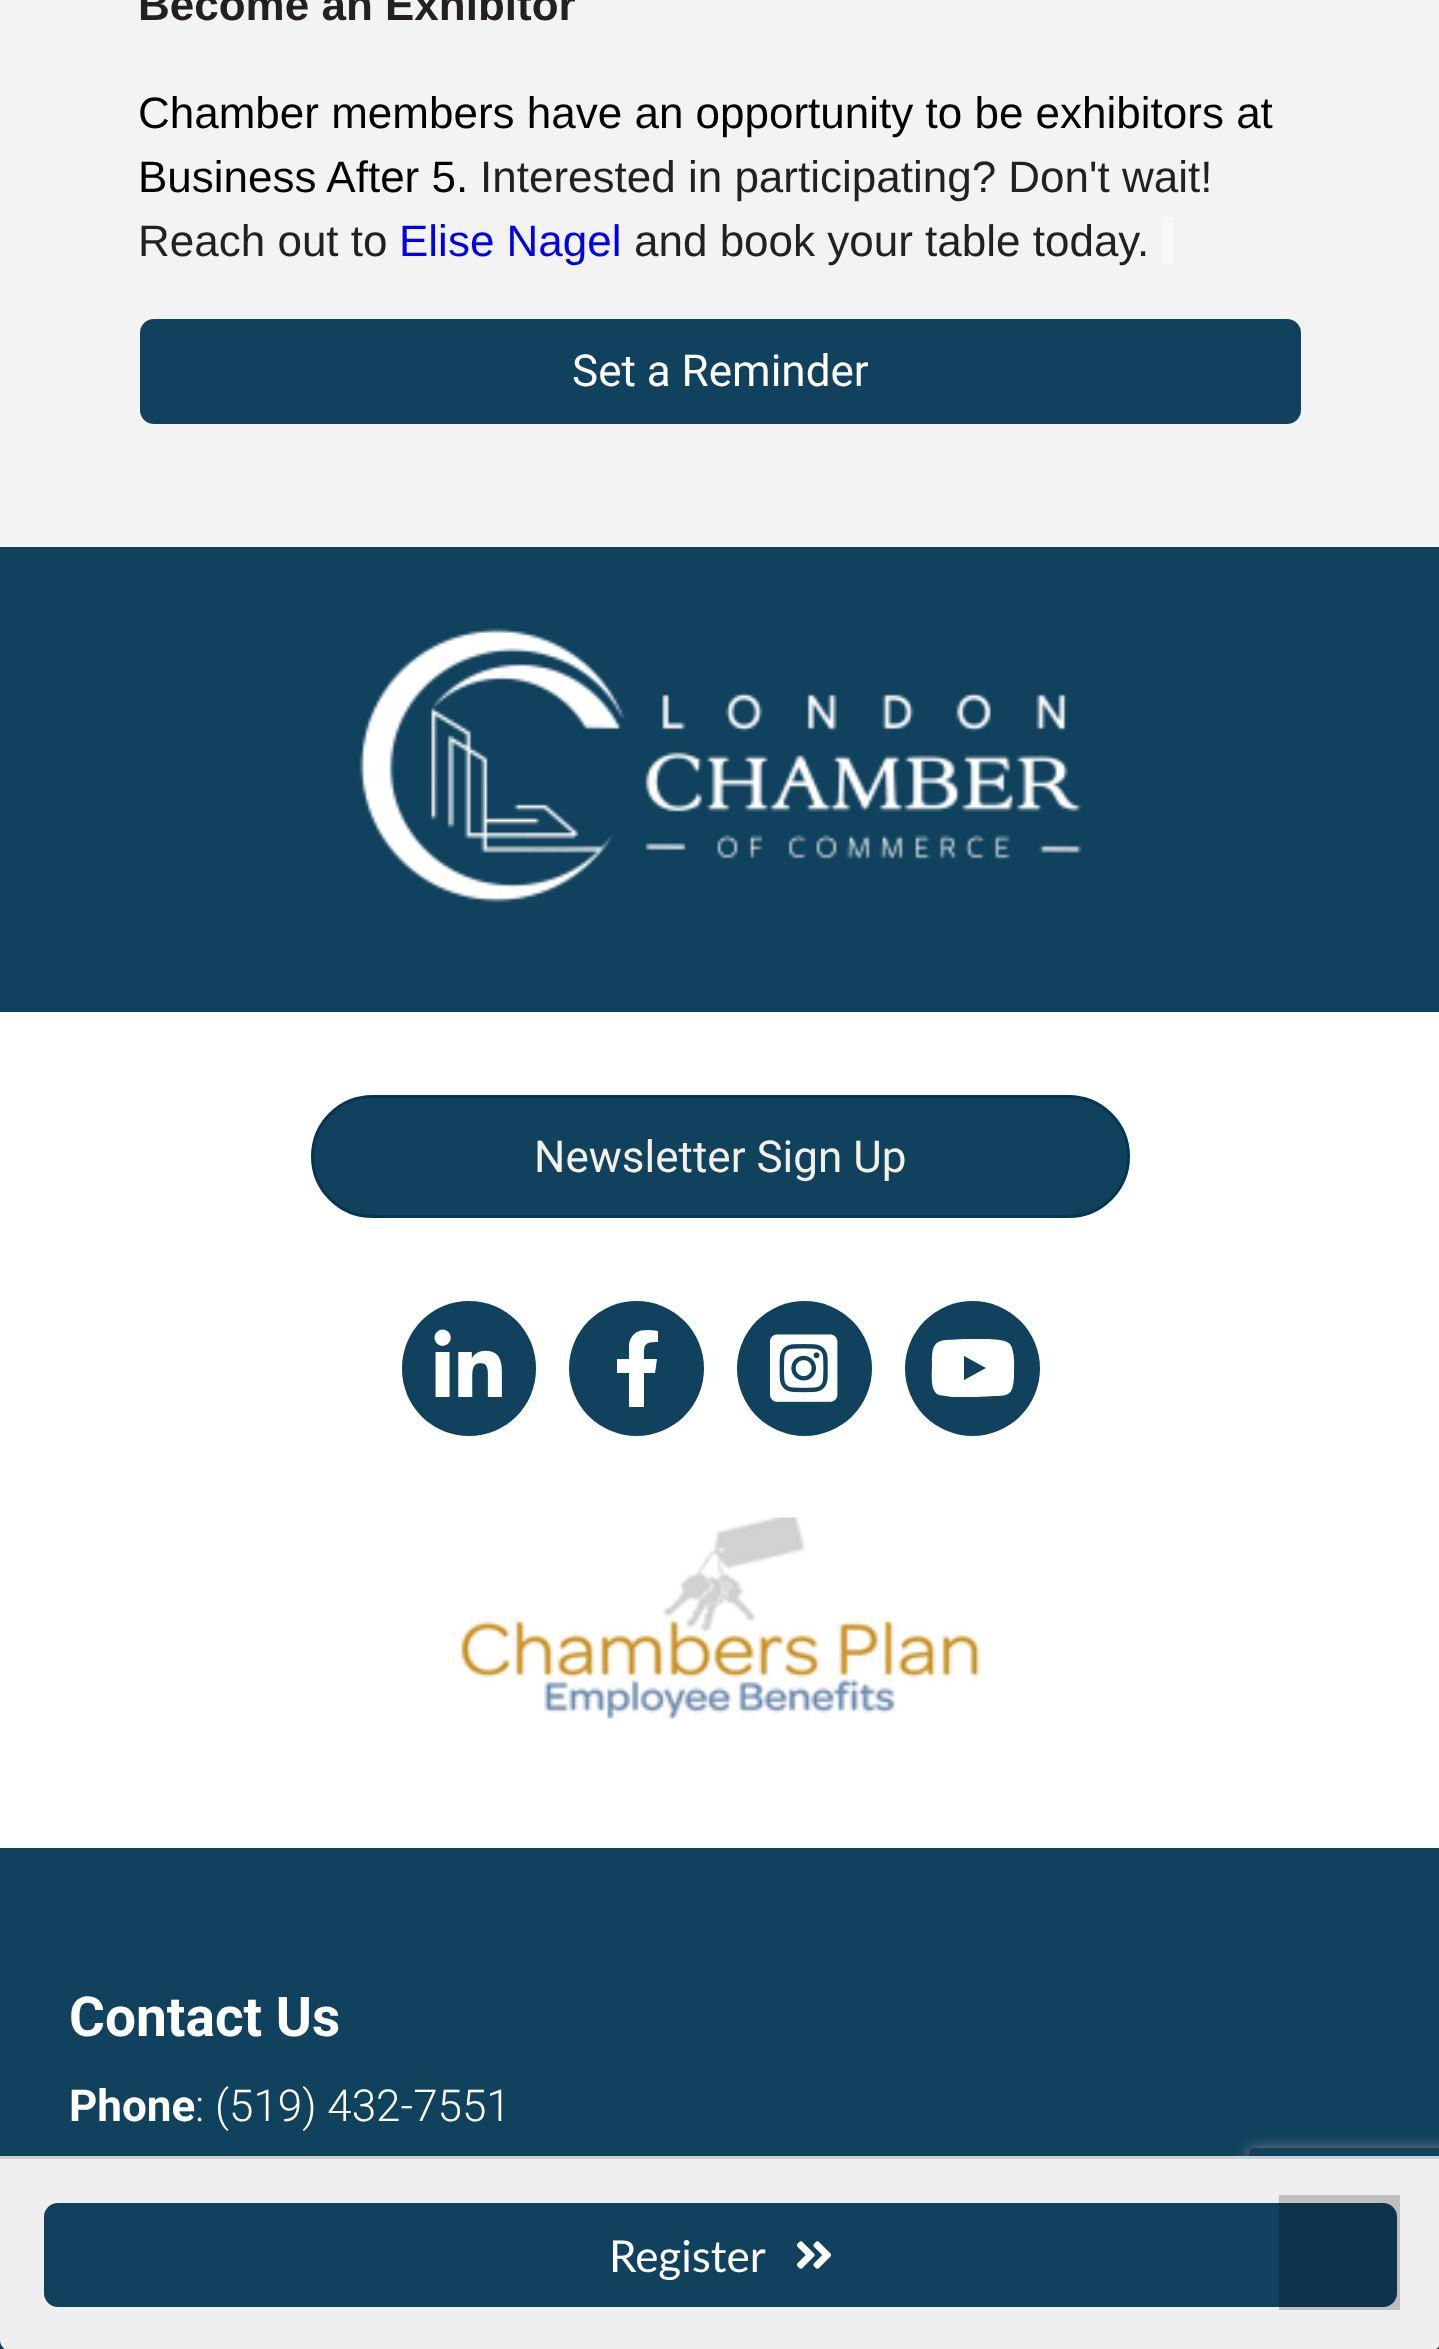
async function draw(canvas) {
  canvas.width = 1439
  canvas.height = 2349
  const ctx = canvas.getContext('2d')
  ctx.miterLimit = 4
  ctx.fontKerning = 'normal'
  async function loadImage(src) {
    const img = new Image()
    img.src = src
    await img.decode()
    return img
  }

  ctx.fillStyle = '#f3f3f3'
  ctx.fillRect(0, 0, 1439, 2349)
  ctx.font = 'bold 44px Liberation Sans'
  ctx.fillStyle = '#241f21'
  ctx.fillText('Become an Exhibitor', 138, 20)
  ctx.font = '44px Liberation Sans'
  ctx.fillStyle = '#000'
  ctx.fillText('Chamber members have an opportunity to be exhibitors at', 138, 128)
  ctx.fillText('Business After 5.', 138, 192)
  ctx.fillStyle = '#241f21'
  ctx.fillText('Interested in participating? Don\'t wait!', 480, 192)
  ctx.fillText('Reach out to', 138, 256)
  ctx.fillStyle = '#00e'
  ctx.fillText('Elise Nagel', 399, 256)
  ctx.fillStyle = '#241f21'
  ctx.fillText('and book your table today.', 634, 256)
  ctx.fillStyle = '#f9f8f7'
  ctx.fillRect(1161, 217, 13, 47)
  ctx.fillStyle = '#10425e'
  ctx.beginPath()
  ctx.roundRect(141.5, 320.5, 1158, 102, 12.5)
  ctx.fill()
  ctx.strokeStyle = '#10425e'
  ctx.lineWidth = 3
  ctx.stroke()
  ctx.font = '44px Roboto'
  ctx.fillStyle = '#fff'
  ctx.fillText('Set a Reminder', 572, 386)
  ctx.fillStyle = '#10425e'
  ctx.fillRect(0, 547, 1439, 1802)
  ctx.save()
  ctx.beginPath()
  ctx.moveTo(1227, 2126)
  ctx.lineTo(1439, 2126)
  ctx.lineTo(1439, 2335)
  ctx.lineTo(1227, 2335)
  ctx.closePath()
  ctx.moveTo(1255, 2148)
  ctx.lineTo(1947, 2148)
  ctx.bezierCurveTo(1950.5, 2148, 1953, 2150.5, 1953, 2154)
  ctx.lineTo(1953, 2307)
  ctx.bezierCurveTo(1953, 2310.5, 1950.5, 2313, 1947, 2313)
  ctx.lineTo(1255, 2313)
  ctx.bezierCurveTo(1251.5, 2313, 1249, 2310.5, 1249, 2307)
  ctx.lineTo(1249, 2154)
  ctx.bezierCurveTo(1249, 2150.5, 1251.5, 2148, 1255, 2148)
  ctx.closePath()
  ctx.clip('evenodd')
  ctx.fillStyle = '#808080'
  ctx.filter = 'blur(7px)'
  ctx.beginPath()
  ctx.roundRect(1249, 2148, 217, 165, 6)
  ctx.fill()
  ctx.filter = 'none'
  ctx.restore()
  ctx.fillStyle = '#efefef'
  ctx.beginPath()
  ctx.moveTo(0, 2156)
  ctx.lineTo(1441, 2156)
  ctx.lineTo(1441, 2340)
  ctx.bezierCurveTo(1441, 2346, 1436, 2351, 1430, 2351)
  ctx.lineTo(11, 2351)
  ctx.bezierCurveTo(5, 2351, 0, 2346, 0, 2340)
  ctx.closePath()
  ctx.fill()
  ctx.fillStyle = '#d1d1d1'
  ctx.fillRect(0, 2156, 1439, 3)
  ctx.fillStyle = '#10425e'
  ctx.beginPath()
  ctx.roundRect(45.5, 2204.5, 1350, 101, 12.5)
  ctx.fill()
  ctx.stroke()
  ctx.font = '44px Lato'
  ctx.fillStyle = '#fff'
  ctx.fillText('Register', 609, 2272)
  ctx.drawImage(await loadImage('image0.png'), 796, 2241, 36, 28)
  ctx.drawImage(await loadImage('image1.png'), 359, 628, 723, 275)
  ctx.fillRect(0, 1012, 1439, 836)
  ctx.fillStyle = '#10425e'
  ctx.beginPath()
  ctx.roundRect(312.5, 1096.5, 816, 120, 60)
  ctx.fill()
  ctx.strokeStyle = '#043652'
  ctx.stroke()
  ctx.font = '44px Roboto'
  ctx.fillStyle = '#f2f0e7'
  ctx.fillText('Newsletter Sign Up', 534, 1172)
  ctx.fillStyle = '#10425e'
  ctx.beginPath()
  ctx.roundRect(402, 1301, 134, 135, 67)
  ctx.fill()
  ctx.drawImage(await loadImage('image2.png'), 434, 1329, 68, 68)
  ctx.beginPath()
  ctx.arc(636.5, 1368.5, 67.5, 0, 2 * Math.PI)
  ctx.fill()
  ctx.fillStyle = '#fff'
  ctx.beginPath()
  ctx.moveTo(655, 1373)
  ctx.lineTo(644, 1373)
  ctx.lineTo(644, 1407)
  ctx.lineTo(629, 1407)
  ctx.lineTo(629, 1373)
  ctx.lineTo(617, 1373)
  ctx.lineTo(617, 1359)
  ctx.lineTo(629, 1359)
  ctx.lineTo(629, 1344)
  ctx.bezierCurveTo(632, 1328, 646, 1329, 658, 1331)
  ctx.lineTo(658, 1342)
  ctx.bezierCurveTo(643, 1342, 644, 1345, 644, 1359)
  ctx.lineTo(657, 1359)
  ctx.closePath()
  ctx.fill()
  ctx.fillStyle = '#10425e'
  ctx.beginPath()
  ctx.arc(804.5, 1368.5, 67.5, 0, 2 * Math.PI)
  ctx.fill()
  ctx.drawImage(await loadImage('image3.png'), 770, 1334, 68, 68)
  ctx.beginPath()
  ctx.arc(972.5, 1368.5, 67.5, 0, 2 * Math.PI)
  ctx.fill()
  ctx.fillStyle = '#fff'
  ctx.beginPath()
  ctx.moveTo(1012, 1348)
  ctx.bezierCurveTo(1015, 1357, 1014, 1368, 1014, 1377)
  ctx.bezierCurveTo(1013, 1392, 1011, 1396, 996, 1396)
  ctx.lineTo(976, 1397)
  ctx.lineTo(952, 1397)
  ctx.bezierCurveTo(948, 1396, 943, 1396, 939, 1395)
  ctx.bezierCurveTo(936, 1394, 934, 1391, 933, 1388)
  ctx.bezierCurveTo(931, 1381, 932, 1370, 932, 1362)
  ctx.bezierCurveTo(932, 1349, 933, 1341, 946, 1340)
  ctx.lineTo(965, 1339)
  ctx.lineTo(989, 1339)
  ctx.bezierCurveTo(997, 1340, 1010, 1339, 1012, 1348)
  ctx.closePath()
  ctx.moveTo(964, 1380)
  ctx.lineTo(986, 1368)
  ctx.lineTo(964, 1356)
  ctx.closePath()
  ctx.fill()
  ctx.drawImage(await loadImage('image4.png'), 461, 1517, 519, 203)
  ctx.font = 'bold 55px Roboto'
  ctx.fillText('Contact Us', 69, 2036)
  ctx.font = 'bold 44px Roboto'
  ctx.fillText('Phone', 69, 2121)
  ctx.font = '300 44px Roboto'
  ctx.fillText(': (519) 432-7551', 195, 2121)
  ctx.fillStyle = '#00000033'
  ctx.fillRect(1279, 2195, 121, 115)
}

draw(document.querySelector('canvas'))
